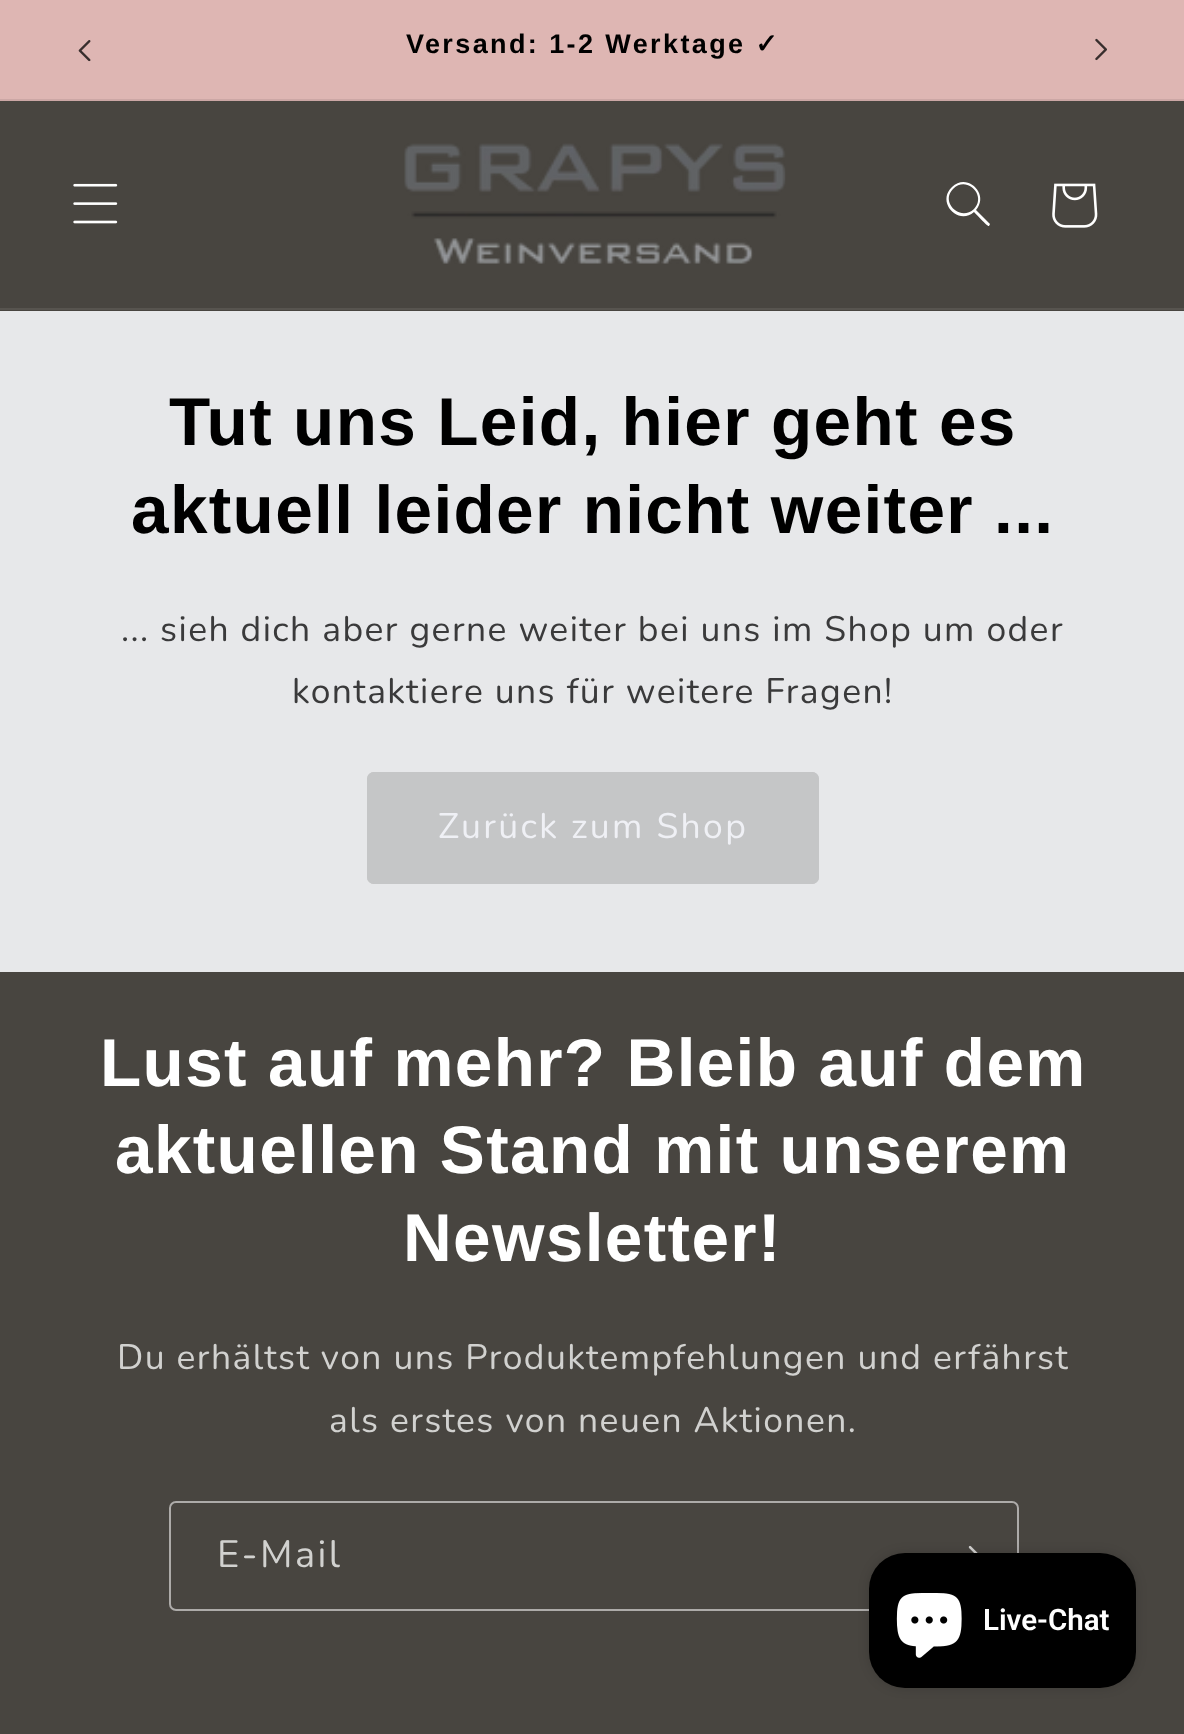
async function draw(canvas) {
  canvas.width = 1184
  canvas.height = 1734
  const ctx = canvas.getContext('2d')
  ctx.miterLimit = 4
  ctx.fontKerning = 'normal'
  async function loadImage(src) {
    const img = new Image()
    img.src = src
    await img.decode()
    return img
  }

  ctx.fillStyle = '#e7e8ea'
  ctx.fillRect(0, 0, 1184, 1734)
  ctx.fillStyle = '#deb6b3'
  ctx.fillRect(0, 0, 1184, 99)
  ctx.fillStyle = '#cca7a5'
  ctx.fillRect(0, 99, 1184, 2)
  ctx.drawImage(await loadImage('image0.png'), 78, 40, 13, 22)
  ctx.letterSpacing = '2.4px'
  ctx.font = 'bold 27px Liberation Sans'
  ctx.fillStyle = '#000'
  ctx.fillText('Versand: 1-2 Werktage', 406, 53)
  ctx.font = 'bold 27px DejaVu Sans'
  ctx.fillText('✓', 755, 53)
  ctx.drawImage(await loadImage('image1.png'), 1095, 38, 12, 23)
  ctx.fillStyle = '#484540'
  ctx.fillRect(0, 101, 1184, 210)
  ctx.fillStyle = '#57544f'
  ctx.fillRect(0, 308, 1184, 2)
  ctx.drawImage(await loadImage('image2.png'), 73, 183, 45, 41)
  ctx.drawImage(await loadImage('image3.png'), 404, 143, 382, 121)
  ctx.fillStyle = '#fff'
  ctx.beginPath()
  ctx.moveTo(974, 209)
  ctx.bezierCurveTo(960, 222, 940, 202, 953, 189)
  ctx.bezierCurveTo(967, 175, 987, 196, 974, 209)
  ctx.closePath()
  ctx.moveTo(974, 212)
  ctx.bezierCurveTo(958, 226, 936, 202, 952, 187)
  ctx.bezierCurveTo(967, 172, 990, 194, 976, 210)
  ctx.lineTo(990, 224)
  ctx.lineTo(989, 226)
  ctx.bezierCurveTo(988, 227, 976, 214, 974, 212)
  ctx.closePath()
  ctx.fill('evenodd')
  ctx.drawImage(await loadImage('image4.png'), 1052, 183, 46, 45)
  ctx.letterSpacing = '1.35px'
  ctx.font = 'bold 67.5px Liberation Sans'
  ctx.fillStyle = '#000'
  ctx.fillText('Tut uns Leid, hier geht es', 169, 445)
  ctx.fillText('aktuell leider nicht weiter ...', 131, 533)
  ctx.letterSpacing = '1.42px'
  ctx.font = '35.45px Nunito'
  ctx.fillStyle = '#3a3a3b'
  ctx.fillText('... sieh dich aber gerne weiter bei uns im Shop um oder', 121, 641)
  ctx.fillText('kontaktiere uns für weitere Fragen!', 292, 703)
  ctx.fillStyle = '#c5c6c7'
  ctx.beginPath()
  ctx.roundRect(367, 772, 452, 112, 7)
  ctx.fill()
  ctx.beginPath()
  ctx.roundRect(368, 773, 450, 110, 6)
  ctx.strokeStyle = '#c5c6c7'
  ctx.lineWidth = 2
  ctx.stroke()
  ctx.letterSpacing = '2.4px'
  ctx.fillStyle = '#eff0f5'
  ctx.fillText('Zurück zum Shop', 438, 838)
  ctx.fillStyle = '#484540'
  ctx.fillRect(0, 972, 1184, 762)
  ctx.letterSpacing = '1.35px'
  ctx.font = 'bold 67.5px Liberation Sans'
  ctx.fillStyle = '#fff'
  ctx.fillText('Lust auf mehr? Bleib auf dem', 100, 1086)
  ctx.fillText('aktuellen Stand mit unserem', 115, 1173)
  ctx.fillText('Newsletter!', 403, 1261)
  ctx.letterSpacing = '1.42px'
  ctx.font = '35.45px Nunito'
  ctx.fillStyle = '#d1d1cf'
  ctx.fillText('Du erhältst von uns Produktempfehlungen und erfährst', 117, 1369)
  ctx.fillText('als erstes von neuen Aktionen.', 329, 1432)
  ctx.beginPath()
  ctx.roundRect(170, 1502, 848, 108, 6)
  ctx.strokeStyle = '#adaba9'
  ctx.stroke()
  ctx.letterSpacing = '2.4px'
  ctx.font = '38px Nunito'
  ctx.fillText('E-Mail', 217, 1567)
  ctx.drawImage(await loadImage('image5.png'), 968, 1545, 10, 8)
  ctx.fillStyle = '#00000026'
  ctx.filter = 'blur(5.5px)'
  ctx.beginPath()
  ctx.roundRect(869, 1553, 267, 135, 36)
  ctx.fill()
  ctx.filter = 'none'
  ctx.fillStyle = '#000'
  ctx.beginPath()
  ctx.roundRect(869, 1553, 267, 135, 36)
  ctx.fill()
  ctx.drawImage(await loadImage('image6.png'), 896, 1593, 66, 65)
  ctx.letterSpacing = '0px'
  ctx.font = '600 29.5px Roboto'
  ctx.fillStyle = '#fff'
  ctx.fillText('Live-Chat', 983, 1630)
}

draw(document.querySelector('canvas'))
